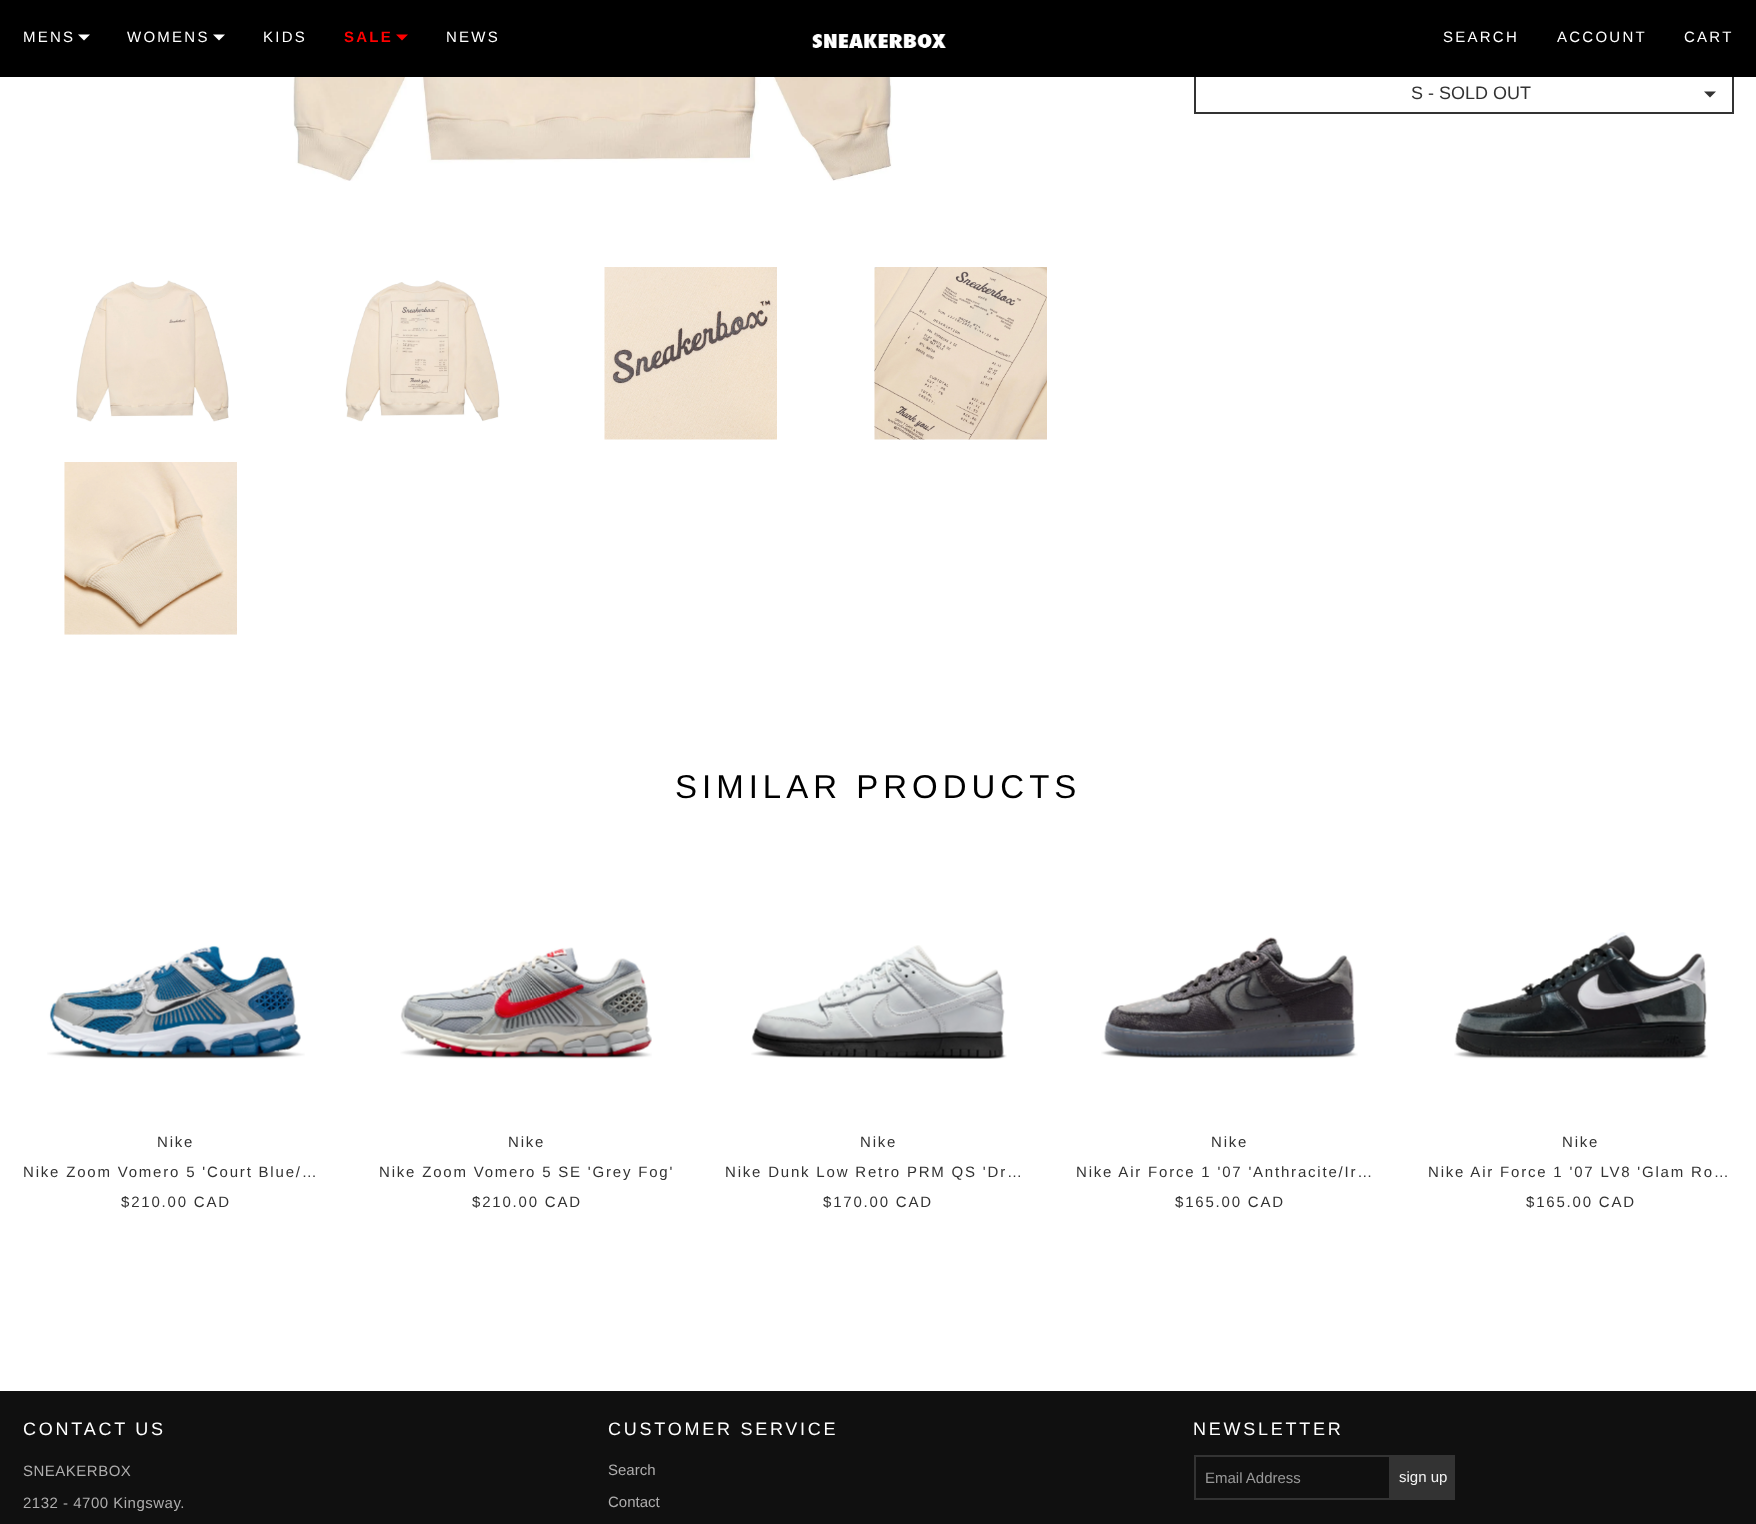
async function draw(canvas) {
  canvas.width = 1756
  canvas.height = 1524
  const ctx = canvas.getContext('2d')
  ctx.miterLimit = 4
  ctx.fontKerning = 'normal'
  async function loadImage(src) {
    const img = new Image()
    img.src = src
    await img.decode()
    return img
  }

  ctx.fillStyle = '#fff'
  ctx.fillRect(0, 0, 1756, 1524)
  ctx.strokeStyle = '#333'
  ctx.lineWidth = 2
  ctx.strokeRect(1195, 70, 538, 43)
  ctx.fillStyle = '#000'
  ctx.fillRect(0, 0, 1756, 77)
  ctx.letterSpacing = '2.25px'
  ctx.font = '15px Liberation Sans'
  ctx.fillStyle = '#fff'
  ctx.fillText('MENS', 23, 42)
  ctx.beginPath()
  ctx.moveTo(78, 34.5)
  ctx.lineTo(90, 34.5)
  ctx.lineTo(84, 40.5)
  ctx.closePath()
  ctx.fill()
  ctx.fillText('WOMENS', 127, 42)
  ctx.beginPath()
  ctx.moveTo(213, 34.5)
  ctx.lineTo(225, 34.5)
  ctx.lineTo(219, 40.5)
  ctx.closePath()
  ctx.fill()
  ctx.fillText('KIDS', 263, 42)
  ctx.font = 'bold 15px Liberation Sans'
  ctx.fillStyle = '#f00'
  ctx.fillText('SALE', 344, 42)
  ctx.beginPath()
  ctx.moveTo(396, 34.5)
  ctx.lineTo(408, 34.5)
  ctx.lineTo(402, 40.5)
  ctx.closePath()
  ctx.fill()
  ctx.font = '15px Liberation Sans'
  ctx.fillStyle = '#fff'
  ctx.fillText('NEWS', 446, 42)
  ctx.fillText('SEARCH', 1443, 42)
  ctx.fillText('ACCOUNT', 1557, 42)
  ctx.fillText('CART', 1684, 42)
  ctx.drawImage(await loadImage('image0.png'), 812, 34, 134, 14)
  ctx.drawImage(await loadImage('image1.png'), 293, 77, 599, 104)
  ctx.drawImage(await loadImage('image2.png'), 76, 280, 153, 142)
  ctx.drawImage(await loadImage('image3.png'), 345, 280, 155, 142)
  ctx.drawImage(await loadImage('image4.png'), 604, 267, 173, 173)
  ctx.drawImage(await loadImage('image5.png'), 874, 267, 173, 173)
  ctx.drawImage(await loadImage('image6.png'), 64, 462, 173, 173)
  ctx.letterSpacing = '0px'
  ctx.font = '18px Liberation Sans'
  ctx.fillStyle = '#333'
  ctx.fillText('S - SOLD OUT', 1411, 99)
  ctx.beginPath()
  ctx.moveTo(1704, 91.5)
  ctx.lineTo(1716, 91.5)
  ctx.lineTo(1710, 97.5)
  ctx.closePath()
  ctx.fill()
  ctx.letterSpacing = '5px'
  ctx.font = '33px Liberation Sans'
  ctx.fillStyle = '#000'
  ctx.fillText('SIMILAR PRODUCTS', 675, 798)
  ctx.drawImage(await loadImage('image7.png'), 47, 945, 258, 114)
  ctx.letterSpacing = '1.8px'
  ctx.font = '15px Liberation Sans'
  ctx.fillStyle = '#333'
  ctx.fillText('Nike', 157, 1147)
  ctx.fillText('Nike Zoom Vomero 5 \'Court Blue/…', 23, 1177)
  ctx.fillText('$210.00 CAD', 121, 1207)
  ctx.drawImage(await loadImage('image8.png'), 400, 947, 252, 112)
  ctx.fillText('Nike', 508, 1147)
  ctx.fillText('Nike Zoom Vomero 5 SE \'Grey Fog\'', 379, 1177)
  ctx.fillText('$210.00 CAD', 472, 1207)
  ctx.drawImage(await loadImage('image9.png'), 751, 945, 256, 114)
  ctx.fillText('Nike', 860, 1147)
  ctx.fillText('Nike Dunk Low Retro PRM QS \'Dr…', 725, 1177)
  ctx.fillText('$170.00 CAD', 823, 1207)
  ctx.drawImage(await loadImage('image10.png'), 1101, 937, 257, 122)
  ctx.fillText('Nike', 1211, 1147)
  ctx.fillText('Nike Air Force 1 \'07 \'Anthracite/Ir…', 1076, 1177)
  ctx.fillText('$165.00 CAD', 1175, 1207)
  ctx.drawImage(await loadImage('image11.png'), 1454, 932, 254, 127)
  ctx.fillText('Nike', 1562, 1147)
  ctx.fillText('Nike Air Force 1 \'07 LV8 \'Glam Ro…', 1428, 1177)
  ctx.fillText('$165.00 CAD', 1526, 1207)
  ctx.fillStyle = '#101010'
  ctx.fillRect(0, 1391, 1756, 133)
  ctx.letterSpacing = '2.75px'
  ctx.font = '18px Liberation Sans'
  ctx.fillStyle = '#fff'
  ctx.fillText('CONTACT US', 23, 1435)
  ctx.letterSpacing = '0.5px'
  ctx.font = '15px Liberation Sans'
  ctx.fillStyle = '#aeadad'
  ctx.fillText('SNEAKERBOX', 23, 1476)
  ctx.fillText('2132 - 4700 Kingsway.', 23, 1508)
  ctx.letterSpacing = '2.75px'
  ctx.font = '18px Liberation Sans'
  ctx.fillStyle = '#fff'
  ctx.fillText('CUSTOMER SERVICE', 608, 1435)
  ctx.letterSpacing = '0px'
  ctx.font = '15px Liberation Sans'
  ctx.fillStyle = '#aeadad'
  ctx.fillText('Search', 608, 1475)
  ctx.fillText('Contact', 608, 1507)
  ctx.letterSpacing = '2.75px'
  ctx.font = '18px Liberation Sans'
  ctx.fillStyle = '#fff'
  ctx.fillText('NEWSLETTER', 1193, 1435)
  ctx.strokeRect(1195, 1456, 195, 43)
  ctx.letterSpacing = '0px'
  ctx.font = '15px Liberation Sans'
  ctx.fillStyle = '#999'
  ctx.fillText('Email Address', 1205, 1483)
  ctx.fillStyle = '#333'
  ctx.fillRect(1391, 1455, 64, 45)
  ctx.fillStyle = '#f2f2f2'
  ctx.fillText('sign up', 1399, 1482)
}

draw(document.querySelector('canvas'))
